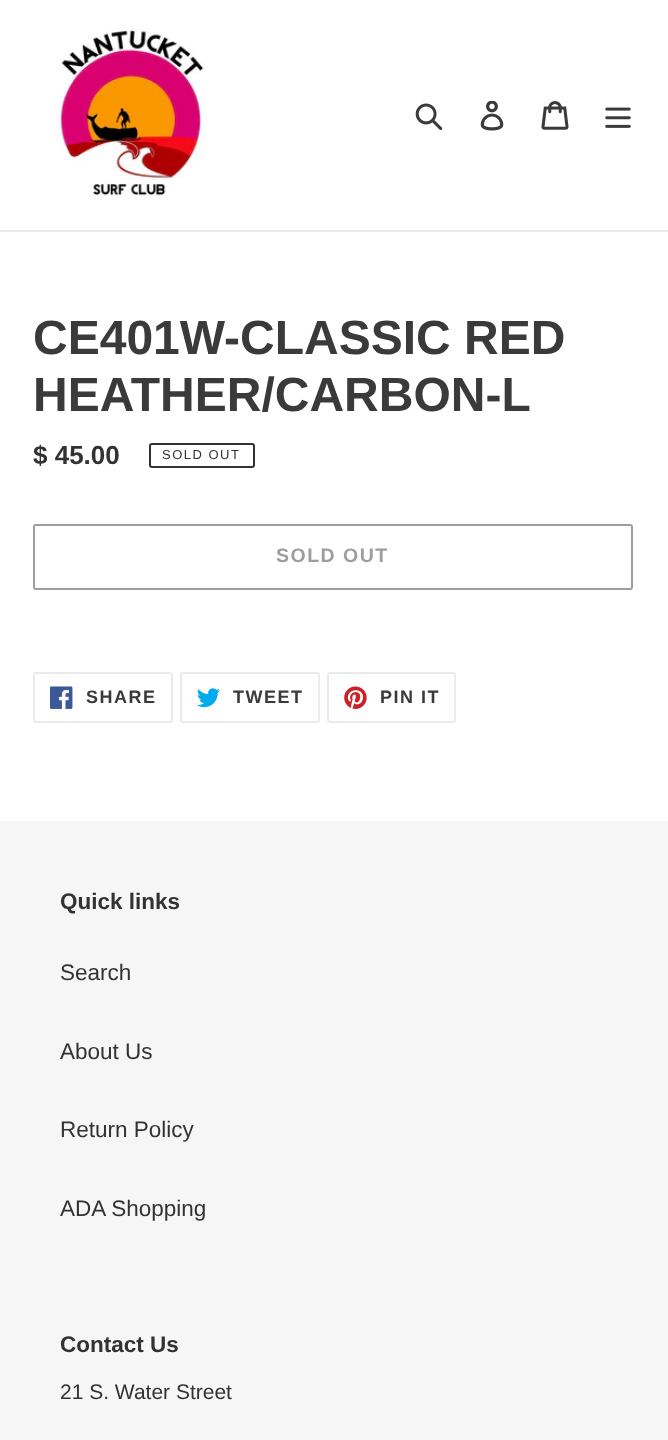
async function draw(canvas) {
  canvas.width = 668
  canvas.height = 1440
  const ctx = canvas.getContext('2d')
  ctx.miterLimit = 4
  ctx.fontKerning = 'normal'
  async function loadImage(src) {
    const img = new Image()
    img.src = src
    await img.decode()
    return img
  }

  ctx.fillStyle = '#fff'
  ctx.fillRect(0, 0, 668, 1440)
  ctx.fillStyle = '#ebebeb'
  ctx.fillRect(0, 230, 668, 2)
  ctx.drawImage(await loadImage('image0.png'), 59, 28, 147, 168)
  ctx.drawImage(await loadImage('image1.png'), 415, 103, 28, 28)
  ctx.drawImage(await loadImage('image2.png'), 480, 101, 24, 30)
  ctx.drawImage(await loadImage('image3.png'), 541, 101, 28, 29)
  ctx.drawImage(await loadImage('image4.png'), 605, 107, 26, 21)
  ctx.font = 'bold 48px Liberation Sans'
  ctx.fillStyle = '#3a3a3a'
  ctx.fillText('CE401W-CLASSIC RED', 33, 354)
  ctx.fillText('HEATHER/CARBON-L', 33, 411)
  ctx.font = 'bold 26px Liberation Sans'
  ctx.fillStyle = '#333232'
  ctx.fillText('$ 45.00', 33, 464)
  ctx.beginPath()
  ctx.roundRect(150, 444, 104, 23, 2)
  ctx.strokeStyle = '#333232'
  ctx.lineWidth = 2
  ctx.stroke()
  ctx.letterSpacing = '1.5px'
  ctx.font = '13px Liberation Sans'
  ctx.fillText('SOLD OUT', 162, 459)
  ctx.beginPath()
  ctx.roundRect(34, 525, 598, 64, 2)
  ctx.strokeStyle = '#9d9d9d'
  ctx.stroke()
  ctx.font = 'bold 19.5px Liberation Sans'
  ctx.fillStyle = '#9d9d9d'
  ctx.fillText('SOLD OUT', 276, 562)
  ctx.beginPath()
  ctx.roundRect(34, 673, 138, 49, 2)
  ctx.strokeStyle = '#ebebeb'
  ctx.stroke()
  ctx.drawImage(await loadImage('image5.png'), 50, 686, 23, 23)
  ctx.font = 'bold 18px Liberation Sans'
  ctx.fillStyle = '#3a3a3a'
  ctx.fillText('SHARE', 86, 703)
  ctx.beginPath()
  ctx.roundRect(181, 673, 138, 49, 2)
  ctx.stroke()
  ctx.drawImage(await loadImage('image6.png'), 197, 688, 23, 20)
  ctx.fillText('TWEET', 233, 703)
  ctx.beginPath()
  ctx.roundRect(328, 673, 127, 49, 2)
  ctx.stroke()
  ctx.drawImage(await loadImage('image7.png'), 344, 686, 23, 23)
  ctx.fillText('PIN IT', 380, 703)
  ctx.fillStyle = '#f6f6f6'
  ctx.fillRect(0, 821, 668, 619)
  ctx.letterSpacing = '0px'
  ctx.font = 'bold 22.5px Liberation Sans'
  ctx.fillStyle = '#333232'
  ctx.fillText('Quick links', 60, 909)
  ctx.font = '22.5px Liberation Sans'
  ctx.fillText('Search', 60, 980)
  ctx.fillText('About Us', 60, 1059)
  ctx.fillText('Return Policy', 60, 1137)
  ctx.fillText('ADA Shopping', 60, 1216)
  ctx.font = 'bold 22.5px Liberation Sans'
  ctx.fillText('Contact Us', 60, 1352)
  ctx.font = '21px Liberation Sans'
  ctx.fillText('21 S. Water Street', 60, 1399)
}

draw(document.querySelector('canvas'))
